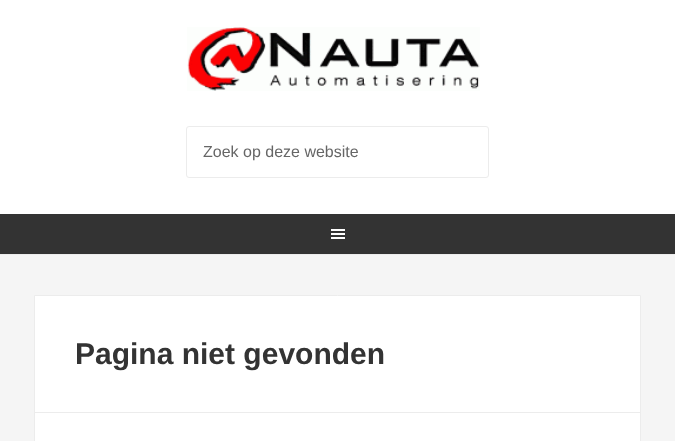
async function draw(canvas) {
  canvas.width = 675
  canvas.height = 441
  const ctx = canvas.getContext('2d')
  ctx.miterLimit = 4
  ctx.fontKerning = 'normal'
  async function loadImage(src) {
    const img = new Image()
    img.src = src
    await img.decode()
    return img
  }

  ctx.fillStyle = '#fff'
  ctx.fillRect(0, 0, 675, 441)
  ctx.drawImage(await loadImage('image0.png'), 187, 27, 293, 64)
  ctx.beginPath()
  ctx.roundRect(186.5, 126.5, 302, 51, 2.5)
  ctx.strokeStyle = '#ececec'
  ctx.stroke()
  ctx.font = '16px Liberation Sans'
  ctx.fillStyle = '#666'
  ctx.fillText('Zoek op deze website', 203, 157)
  ctx.fillStyle = '#333'
  ctx.fillRect(0, 214, 675, 40)
  ctx.drawImage(await loadImage('image1.png'), 331, 229, 14, 10)
  ctx.fillStyle = '#f5f5f5'
  ctx.fillRect(0, 255, 675, 186)
  ctx.fillStyle = '#ececec'
  ctx.fillRect(0, 254, 675, 1)
  ctx.fillStyle = '#fff'
  ctx.beginPath()
  ctx.rect(34.5, 295.5, 606, 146)
  ctx.fill()
  ctx.stroke()
  ctx.fillStyle = '#ececec'
  ctx.fillRect(35, 412, 605, 1)
  ctx.font = 'bold 30px Liberation Sans'
  ctx.fillStyle = '#333'
  ctx.fillText('Pagina niet gevonden', 75, 364)
}

draw(document.querySelector('canvas'))
